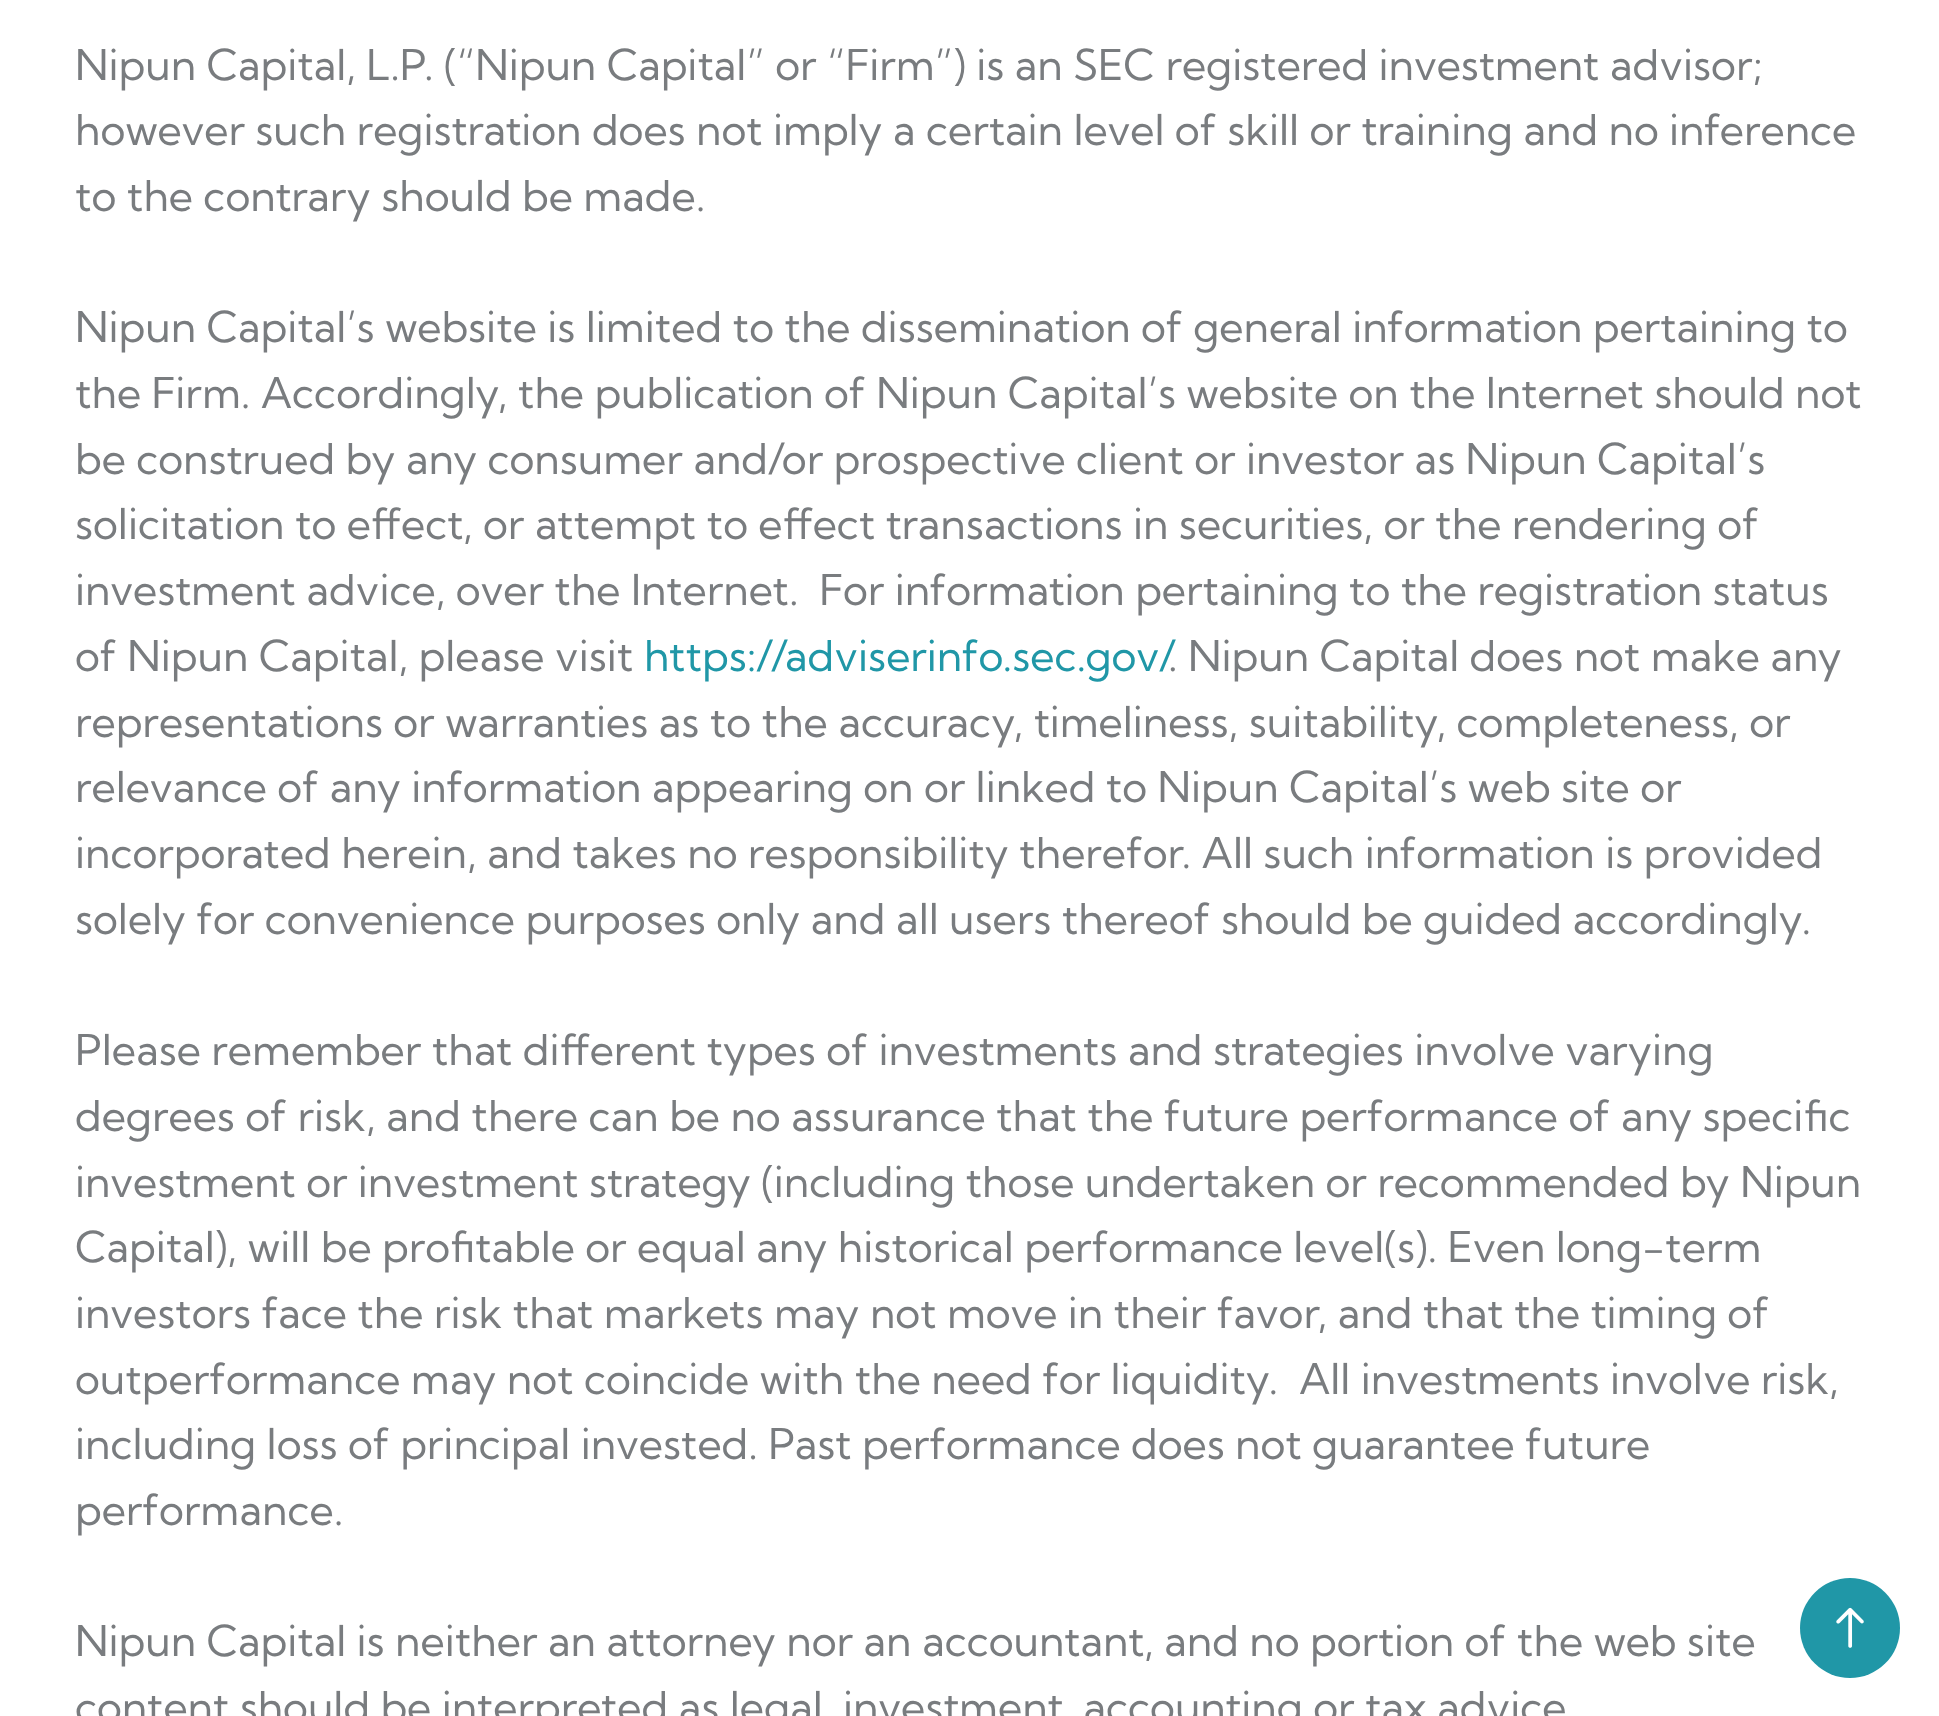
async function draw(canvas) {
  canvas.width = 1939
  canvas.height = 1716
  const ctx = canvas.getContext('2d')
  ctx.miterLimit = 4
  ctx.fontKerning = 'normal'
  async function loadImage(src) {
    const img = new Image()
    img.src = src
    await img.decode()
    return img
  }

  ctx.fillStyle = '#fff'
  ctx.fillRect(0, 0, 1939, 1716)
  ctx.font = '42.5px Kumbh Sans'
  ctx.fillStyle = '#797c7f'
  ctx.fillText('Nipun Capital, L.P. (“Nipun Capital” or “Firm”) is an SEC registered investment advisor;', 75, 80)
  ctx.fillText('however such registration does not imply a certain level of skill or training and no inference', 75, 145)
  ctx.fillText('to the contrary should be made.', 75, 211)
  ctx.fillText('Nipun Capital’s website is limited to the dissemination of general information pertaining to', 75, 342)
  ctx.fillText('the Firm. Accordingly, the publication of Nipun Capital’s website on the Internet should not', 75, 408)
  ctx.fillText('be construed by any consumer and/or prospective client or investor as Nipun Capital’s', 75, 474)
  ctx.fillText('solicitation to effect, or attempt to effect transactions in securities, or the rendering of', 75, 539)
  ctx.fillText('investment advice, over the Internet.  For information pertaining to the registration status', 75, 605)
  ctx.fillText('of Nipun Capital, please visit', 75, 671)
  ctx.fillStyle = '#2097a7'
  ctx.fillText('https://adviserinfo.sec.gov/', 644, 671)
  ctx.fillStyle = '#797c7f'
  ctx.fillText('. Nipun Capital does not make any', 1168, 671)
  ctx.fillText('representations or warranties as to the accuracy, timeliness, suitability, completeness, or', 75, 737)
  ctx.fillText('relevance of any information appearing on or linked to Nipun Capital’s web site or', 75, 802)
  ctx.fillText('incorporated herein, and takes no responsibility therefor. All such information is provided', 75, 868)
  ctx.fillText('solely for convenience purposes only and all users thereof should be guided accordingly.', 75, 934)
  ctx.fillText('Please remember that different types of investments and strategies involve varying', 75, 1065)
  ctx.fillText('degrees of risk, and there can be no assurance that the future performance of any specific', 75, 1131)
  ctx.fillText('investment or investment strategy (including those undertaken or recommended by Nipun', 75, 1197)
  ctx.fillText('Capital), will be profitable or equal any historical performance level(s). Even long-term', 75, 1262)
  ctx.fillText('investors face the risk that markets may not move in their favor, and that the timing of', 75, 1328)
  ctx.fillText('outperformance may not coincide with the need for liquidity.  All investments involve risk,', 75, 1394)
  ctx.fillText('including loss of principal invested. Past performance does not guarantee future', 75, 1459)
  ctx.fillText('performance.', 75, 1525)
  ctx.fillText('Nipun Capital is neither an attorney nor an accountant, and no portion of the web site', 75, 1656)
  ctx.fillText('content should be interpreted as legal, investment, accounting or tax advice', 75, 1722)
  ctx.fillStyle = '#2097a7'
  ctx.beginPath()
  ctx.arc(1850, 1628, 50, 0, 2 * Math.PI)
  ctx.fill()
  ctx.drawImage(await loadImage('image0.png'), 1836, 1607, 28, 41)
}

draw(document.querySelector('canvas'))
